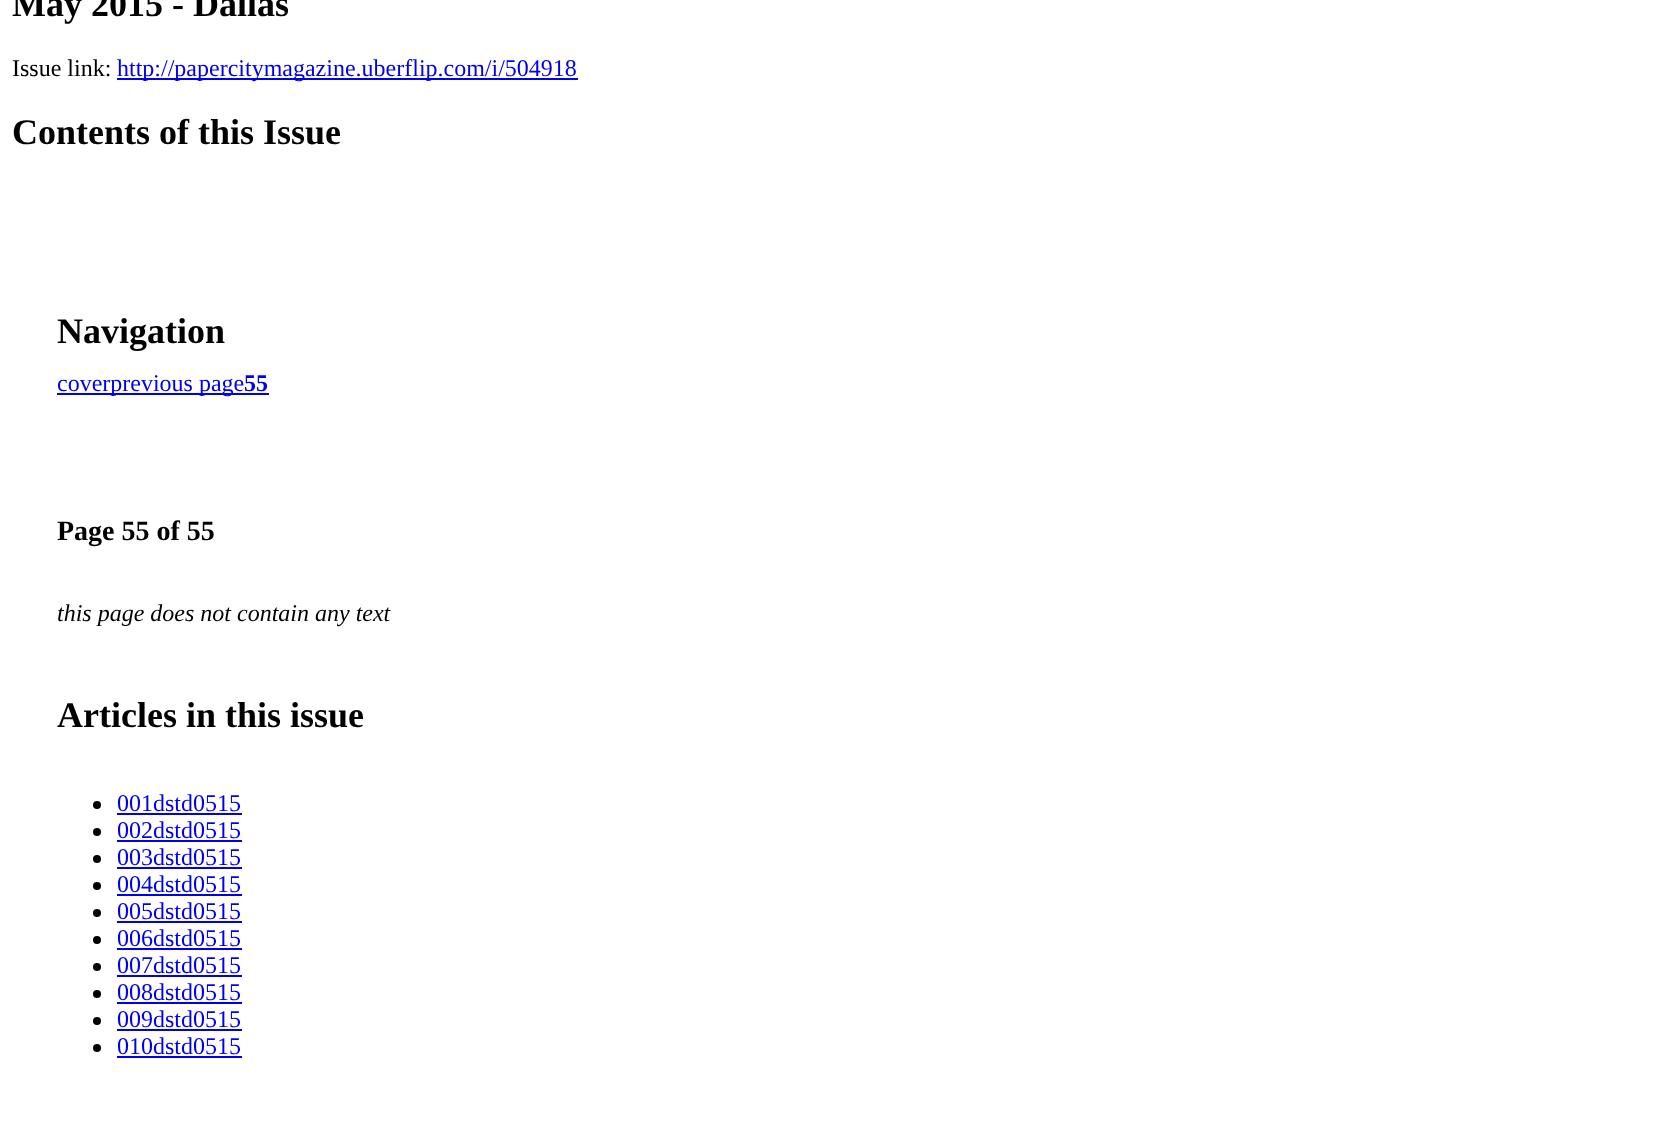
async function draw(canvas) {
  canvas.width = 1666
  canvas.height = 1129
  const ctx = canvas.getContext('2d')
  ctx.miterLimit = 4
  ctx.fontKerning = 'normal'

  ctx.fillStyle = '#fff'
  ctx.fillRect(0, 0, 1666, 1129)
  ctx.font = 'bold 36px Liberation Serif'
  ctx.fillStyle = '#000'
  ctx.fillText('May 2015 - Dallas', 12, 16)
  ctx.font = '24px Liberation Serif'
  ctx.fillText('Issue link:', 12, 76)
  ctx.fillStyle = '#00e'
  ctx.fillRect(117, 78, 461, 2)
  ctx.fillText('http://papercitymagazine.uberflip.com/i/504918', 117, 76)
  ctx.font = 'bold 36px Liberation Serif'
  ctx.fillStyle = '#000'
  ctx.fillText('Contents of this Issue', 12, 144)
  ctx.fillText('Navigation', 57, 343)
  ctx.fillStyle = '#00e'
  ctx.fillRect(57, 393, 212, 2)
  ctx.font = '24px Liberation Serif'
  ctx.fillText('coverprevious page', 57, 391)
  ctx.font = 'bold 24px Liberation Serif'
  ctx.fillText('55', 244, 391)
  ctx.font = 'bold 28px Liberation Serif'
  ctx.fillStyle = '#000'
  ctx.fillText('Page 55 of 55', 57, 540)
  ctx.font = 'italic 24px Liberation Serif'
  ctx.fillText('this page does not contain any text', 57, 621)
  ctx.font = 'bold 36px Liberation Serif'
  ctx.fillText('Articles in this issue', 57, 727)
  ctx.beginPath()
  ctx.arc(97, 805, 4, 0, 2 * Math.PI)
  ctx.fill()
  ctx.font = '24px Liberation Serif'
  ctx.fillStyle = '#00e'
  ctx.fillText('001dstd0515', 117, 811)
  ctx.fillRect(117, 813, 125, 2)
  ctx.fillStyle = '#000'
  ctx.beginPath()
  ctx.arc(97, 832, 4, 0, 2 * Math.PI)
  ctx.fill()
  ctx.fillStyle = '#00e'
  ctx.fillText('002dstd0515', 117, 838)
  ctx.fillRect(117, 840, 125, 2)
  ctx.fillStyle = '#000'
  ctx.beginPath()
  ctx.arc(97, 859, 4, 0, 2 * Math.PI)
  ctx.fill()
  ctx.fillStyle = '#00e'
  ctx.fillText('003dstd0515', 117, 865)
  ctx.fillRect(117, 867, 125, 2)
  ctx.fillStyle = '#000'
  ctx.beginPath()
  ctx.arc(97, 886, 4, 0, 2 * Math.PI)
  ctx.fill()
  ctx.fillStyle = '#00e'
  ctx.fillText('004dstd0515', 117, 892)
  ctx.fillRect(117, 894, 125, 2)
  ctx.fillStyle = '#000'
  ctx.beginPath()
  ctx.arc(97, 913, 4, 0, 2 * Math.PI)
  ctx.fill()
  ctx.fillStyle = '#00e'
  ctx.fillText('005dstd0515', 117, 919)
  ctx.fillRect(117, 921, 125, 2)
  ctx.fillStyle = '#000'
  ctx.beginPath()
  ctx.arc(97, 940, 4, 0, 2 * Math.PI)
  ctx.fill()
  ctx.fillStyle = '#00e'
  ctx.fillText('006dstd0515', 117, 946)
  ctx.fillRect(117, 948, 125, 2)
  ctx.fillStyle = '#000'
  ctx.beginPath()
  ctx.arc(97, 967, 4, 0, 2 * Math.PI)
  ctx.fill()
  ctx.fillStyle = '#00e'
  ctx.fillText('007dstd0515', 117, 973)
  ctx.fillRect(117, 975, 125, 2)
  ctx.fillStyle = '#000'
  ctx.beginPath()
  ctx.arc(97, 994, 4, 0, 2 * Math.PI)
  ctx.fill()
  ctx.fillStyle = '#00e'
  ctx.fillText('008dstd0515', 117, 1000)
  ctx.fillRect(117, 1002, 125, 2)
  ctx.fillStyle = '#000'
  ctx.beginPath()
  ctx.arc(97, 1021, 4, 0, 2 * Math.PI)
  ctx.fill()
  ctx.fillStyle = '#00e'
  ctx.fillText('009dstd0515', 117, 1027)
  ctx.fillRect(117, 1029, 125, 2)
  ctx.fillStyle = '#000'
  ctx.beginPath()
  ctx.arc(97, 1048, 4, 0, 2 * Math.PI)
  ctx.fill()
  ctx.fillStyle = '#00e'
  ctx.fillText('010dstd0515', 117, 1054)
  ctx.fillRect(117, 1056, 125, 2)
}

draw(document.querySelector('canvas'))
